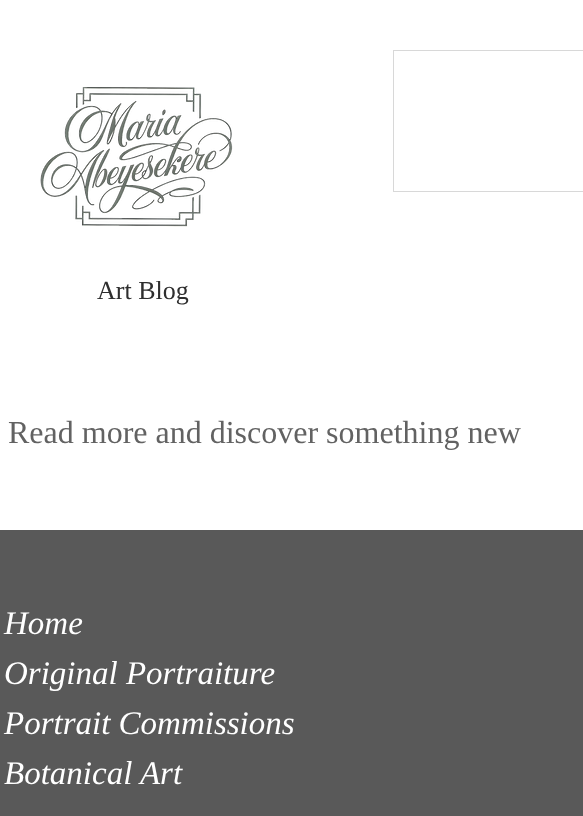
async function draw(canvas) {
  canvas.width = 583
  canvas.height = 816
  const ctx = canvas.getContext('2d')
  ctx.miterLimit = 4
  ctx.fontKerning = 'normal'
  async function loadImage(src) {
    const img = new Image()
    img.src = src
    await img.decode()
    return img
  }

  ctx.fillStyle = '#595959'
  ctx.fillRect(0, 0, 583, 816)
  ctx.fillStyle = '#fff'
  ctx.fillRect(0, 0, 583, 530)
  ctx.drawImage(await loadImage('image0.png'), 40, 87, 193, 140)
  ctx.strokeStyle = '#d8d8d8'
  ctx.strokeRect(393.5, 50.5, 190, 141)
  ctx.font = '26px Liberation Serif'
  ctx.fillStyle = '#2e2e2e'
  ctx.fillText('Art Blog', 97, 299)
  ctx.font = '32px Liberation Serif'
  ctx.fillStyle = '#626262'
  ctx.fillText('Read more and discover something new', 8, 443)
  ctx.font = 'italic 33px Liberation Serif'
  ctx.fillStyle = '#fff'
  ctx.fillText('Home', 4, 634)
  ctx.fillText('Original Portraiture', 4, 684)
  ctx.fillText('Portrait Commissions', 4, 734)
  ctx.fillText('Botanical Art', 4, 784)
}

draw(document.querySelector('canvas'))
